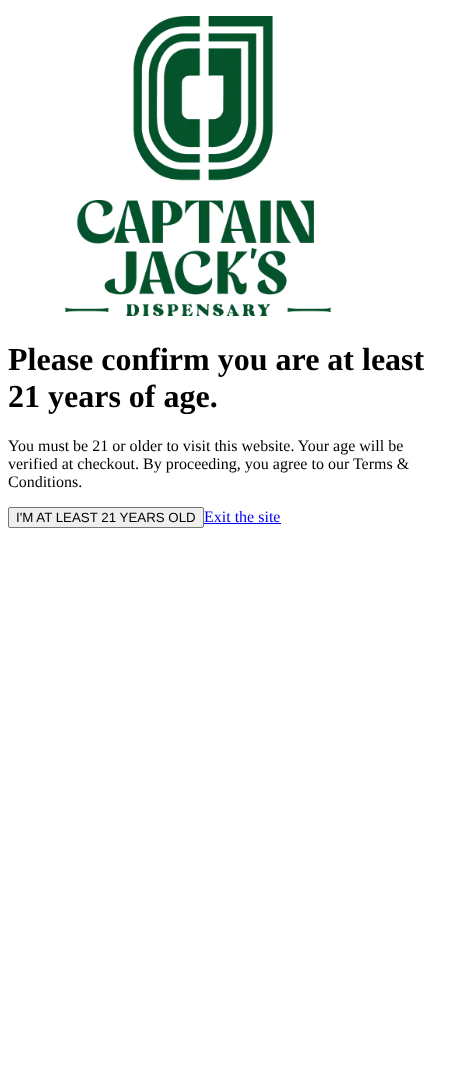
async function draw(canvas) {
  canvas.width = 463
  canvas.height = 1081
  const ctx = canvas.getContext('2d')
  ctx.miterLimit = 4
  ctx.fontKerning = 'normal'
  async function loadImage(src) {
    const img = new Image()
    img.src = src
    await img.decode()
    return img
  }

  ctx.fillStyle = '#fff'
  ctx.fillRect(0, 0, 463, 1081)
  ctx.drawImage(await loadImage('image0.png'), 65, 16, 266, 300)
  ctx.font = 'bold 32px Liberation Serif'
  ctx.fillStyle = '#000'
  ctx.fillText('Please confirm you are at least', 8, 370)
  ctx.fillText('21 years of age.', 8, 407)
  ctx.font = '16px Liberation Serif'
  ctx.fillText('You must be 21 or older to visit this website. Your age will be', 8, 451)
  ctx.fillText('verified at checkout. By proceeding, you agree to our Terms &', 8, 469)
  ctx.fillText('Conditions.', 8, 487)
  ctx.fillStyle = '#efefef'
  ctx.beginPath()
  ctx.roundRect(8.5, 507.5, 195, 20, 1.5)
  ctx.fill()
  ctx.strokeStyle = '#767676'
  ctx.stroke()
  ctx.font = '13.3px Liberation Sans'
  ctx.fillStyle = '#000'
  ctx.fillText('I\'M AT LEAST 21 YEARS OLD', 16, 522)
  ctx.font = '16px Liberation Serif'
  ctx.fillStyle = '#00e'
  ctx.fillText('Exit the site', 204, 522)
  ctx.fillRect(204, 523, 77, 1)
}

draw(document.querySelector('canvas'))
